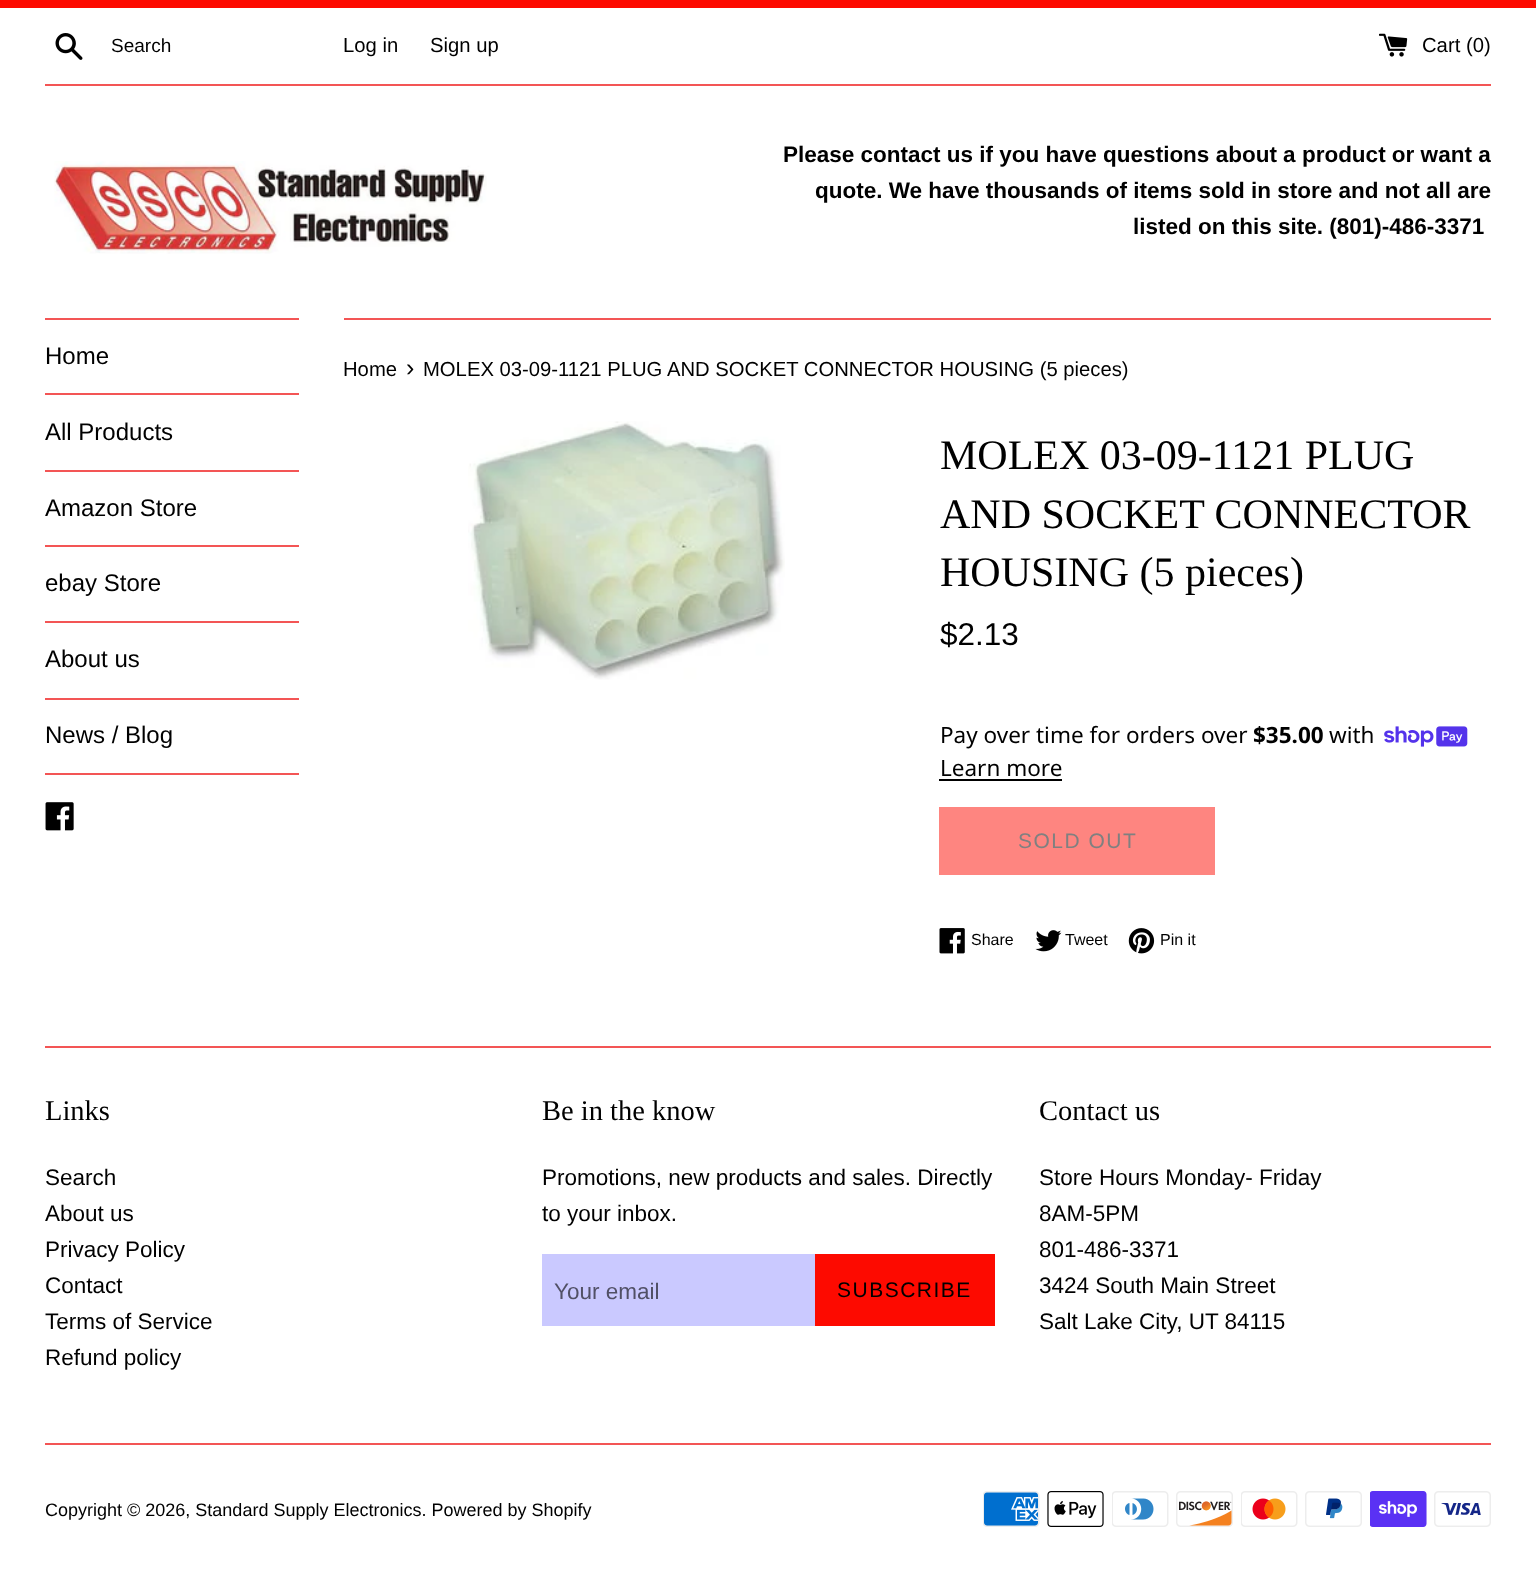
async function draw(canvas) {
  canvas.width = 1536
  canvas.height = 1571
  const ctx = canvas.getContext('2d')
  ctx.miterLimit = 4
  ctx.fontKerning = 'normal'
  async function loadImage(src) {
    const img = new Image()
    img.src = src
    await img.decode()
    return img
  }

  ctx.fillStyle = '#fff'
  ctx.fillRect(0, 0, 1536, 1571)
  ctx.fillStyle = '#fd0a00'
  ctx.fillRect(0, 0, 1536, 8)
  ctx.drawImage(await loadImage('image0.png'), 55, 33, 28, 27)
  ctx.font = '19px Liberation Sans'
  ctx.fillStyle = '#000'
  ctx.fillText('Search', 111, 52)
  ctx.font = '20.25px Liberation Sans'
  ctx.fillText('Log in', 343, 52)
  ctx.fillText('Sign up', 430, 52)
  ctx.drawImage(await loadImage('image1.png'), 1379, 33, 29, 24)
  ctx.fillText('Cart (0)', 1422, 52)
  ctx.fillStyle = '#f35555'
  ctx.fillRect(45, 84, 1446, 2)
  ctx.drawImage(await loadImage('image2.png'), 54, 161, 433, 93)
  ctx.font = 'bold 22.5px Liberation Sans'
  ctx.fillStyle = '#000'
  ctx.fillText('Please contact us if you have questions about a product or want a', 783, 162)
  ctx.fillText('quote. We have thousands of items sold in store and not all are', 815, 198)
  ctx.fillText('listed on this site. (801)-486-3371', 1133, 234)
  ctx.fillStyle = '#f35555'
  ctx.fillRect(45, 318, 254, 2)
  ctx.fillRect(45, 393, 254, 2)
  ctx.font = '24px Liberation Sans'
  ctx.fillStyle = '#000'
  ctx.fillText('Home', 45, 364)
  ctx.fillStyle = '#f35555'
  ctx.fillRect(45, 470, 254, 2)
  ctx.fillStyle = '#000'
  ctx.fillText('All Products', 45, 440)
  ctx.fillStyle = '#f35555'
  ctx.fillRect(45, 545, 254, 2)
  ctx.fillStyle = '#000'
  ctx.fillText('Amazon Store', 45, 516)
  ctx.fillStyle = '#f35555'
  ctx.fillRect(45, 621, 254, 2)
  ctx.fillStyle = '#000'
  ctx.fillText('ebay Store', 45, 591)
  ctx.fillStyle = '#f35555'
  ctx.fillRect(45, 698, 254, 2)
  ctx.fillStyle = '#000'
  ctx.fillText('About us', 45, 667)
  ctx.fillStyle = '#f35555'
  ctx.fillRect(45, 773, 254, 2)
  ctx.fillStyle = '#000'
  ctx.fillText('News / Blog', 45, 743)
  ctx.drawImage(await loadImage('image3.png'), 45, 802, 29, 29)
  ctx.fillStyle = '#f35555'
  ctx.fillRect(344, 318, 1147, 2)
  ctx.font = '20.25px Liberation Sans'
  ctx.fillStyle = '#000'
  ctx.fillText('Home', 343, 376)
  ctx.font = '25px Liberation Sans'
  ctx.fillText('›', 406, 376)
  ctx.font = '20.25px Liberation Sans'
  ctx.fillText('MOLEX 03-09-1121 PLUG AND SOCKET CONNECTOR HOUSING (5 pieces)', 423, 376)
  ctx.drawImage(await loadImage('image4.png'), 468, 421, 317, 259)
  ctx.font = '42px Liberation Serif'
  ctx.fillText('MOLEX 03-09-1121 PLUG', 940, 469)
  ctx.fillText('AND SOCKET CONNECTOR', 940, 528)
  ctx.fillText('HOUSING (5 pieces)', 940, 586)
  ctx.font = '31.5px Liberation Sans'
  ctx.fillText('$2.13', 940, 645)
  ctx.font = '22.5px Noto Sans'
  ctx.fillText('Pay over time for orders over', 940, 743)
  ctx.font = 'bold 22.5px Noto Sans'
  ctx.fillText('$35.00', 1253, 743)
  ctx.font = '22.5px Noto Sans'
  ctx.fillText('with', 1329, 743)
  ctx.drawImage(await loadImage('image5.png'), 1384, 726, 84, 21)
  ctx.fillText('Learn more', 940, 776)
  ctx.fillRect(939, 779, 123, 2)
  ctx.fillStyle = '#fe8580'
  ctx.fillRect(939, 807, 276, 68)
  ctx.letterSpacing = '1.5px'
  ctx.font = '21px Liberation Sans'
  ctx.fillStyle = '#808080'
  ctx.fillText('SOLD OUT', 1018, 848)
  ctx.drawImage(await loadImage('image6.png'), 939, 928, 26, 26)
  ctx.letterSpacing = '0px'
  ctx.font = '16px Liberation Sans'
  ctx.fillStyle = '#000'
  ctx.fillText('Share', 971, 945)
  ctx.drawImage(await loadImage('image7.png'), 1035, 930, 27, 22)
  ctx.fillText('Tweet', 1065, 945)
  ctx.drawImage(await loadImage('image8.png'), 1128, 928, 27, 26)
  ctx.fillText('Pin it', 1160, 945)
  ctx.fillStyle = '#f35555'
  ctx.fillRect(45, 1046, 1446, 2)
  ctx.font = '28.5px Liberation Serif'
  ctx.fillStyle = '#000'
  ctx.fillText('Links', 45, 1120)
  ctx.font = '22.5px Liberation Sans'
  ctx.fillText('Search', 45, 1185)
  ctx.fillText('About us', 45, 1221)
  ctx.fillText('Privacy Policy', 45, 1257)
  ctx.fillText('Contact', 45, 1293)
  ctx.fillText('Terms of Service', 45, 1329)
  ctx.fillText('Refund policy', 45, 1365)
  ctx.font = '28.5px Liberation Serif'
  ctx.fillText('Be in the know', 542, 1120)
  ctx.font = '22.5px Liberation Sans'
  ctx.fillText('Promotions, new products and sales. Directly', 542, 1185)
  ctx.fillText('to your inbox.', 542, 1221)
  ctx.fillStyle = '#cac9ff'
  ctx.fillRect(542, 1254, 273, 72)
  ctx.fillStyle = '#515066'
  ctx.fillText('Your email', 554, 1299)
  ctx.fillStyle = '#fd0a00'
  ctx.fillRect(815, 1254, 180, 72)
  ctx.letterSpacing = '1.5px'
  ctx.font = '21px Liberation Sans'
  ctx.fillStyle = '#000'
  ctx.fillText('SUBSCRIBE', 837, 1297)
  ctx.letterSpacing = '0px'
  ctx.font = '28.5px Liberation Serif'
  ctx.fillText('Contact us', 1039, 1120)
  ctx.font = '22.5px Liberation Sans'
  ctx.fillText('Store Hours Monday- Friday', 1039, 1185)
  ctx.fillText('8AM-5PM', 1039, 1221)
  ctx.fillText('801-486-3371', 1039, 1257)
  ctx.fillText('3424 South Main Street', 1039, 1293)
  ctx.fillText('Salt Lake City, UT 84115', 1039, 1329)
  ctx.fillStyle = '#f35555'
  ctx.fillRect(45, 1443, 1446, 2)
  ctx.font = '18px Liberation Sans'
  ctx.fillStyle = '#000'
  ctx.fillText('Copyright © 2026, Standard Supply Electronics. Powered by Shopify', 45, 1516)
  ctx.drawImage(await loadImage('image9.png'), 983, 1491, 57, 36)
  ctx.drawImage(await loadImage('image10.png'), 1047, 1491, 57, 36)
  ctx.drawImage(await loadImage('image11.png'), 1112, 1491, 57, 36)
  ctx.drawImage(await loadImage('image12.png'), 1176, 1491, 57, 36)
  ctx.drawImage(await loadImage('image13.png'), 1241, 1491, 57, 36)
  ctx.drawImage(await loadImage('image14.png'), 1305, 1491, 57, 36)
  ctx.drawImage(await loadImage('image15.png'), 1370, 1491, 57, 36)
  ctx.drawImage(await loadImage('image16.png'), 1434, 1491, 57, 36)
}

draw(document.querySelector('canvas'))
